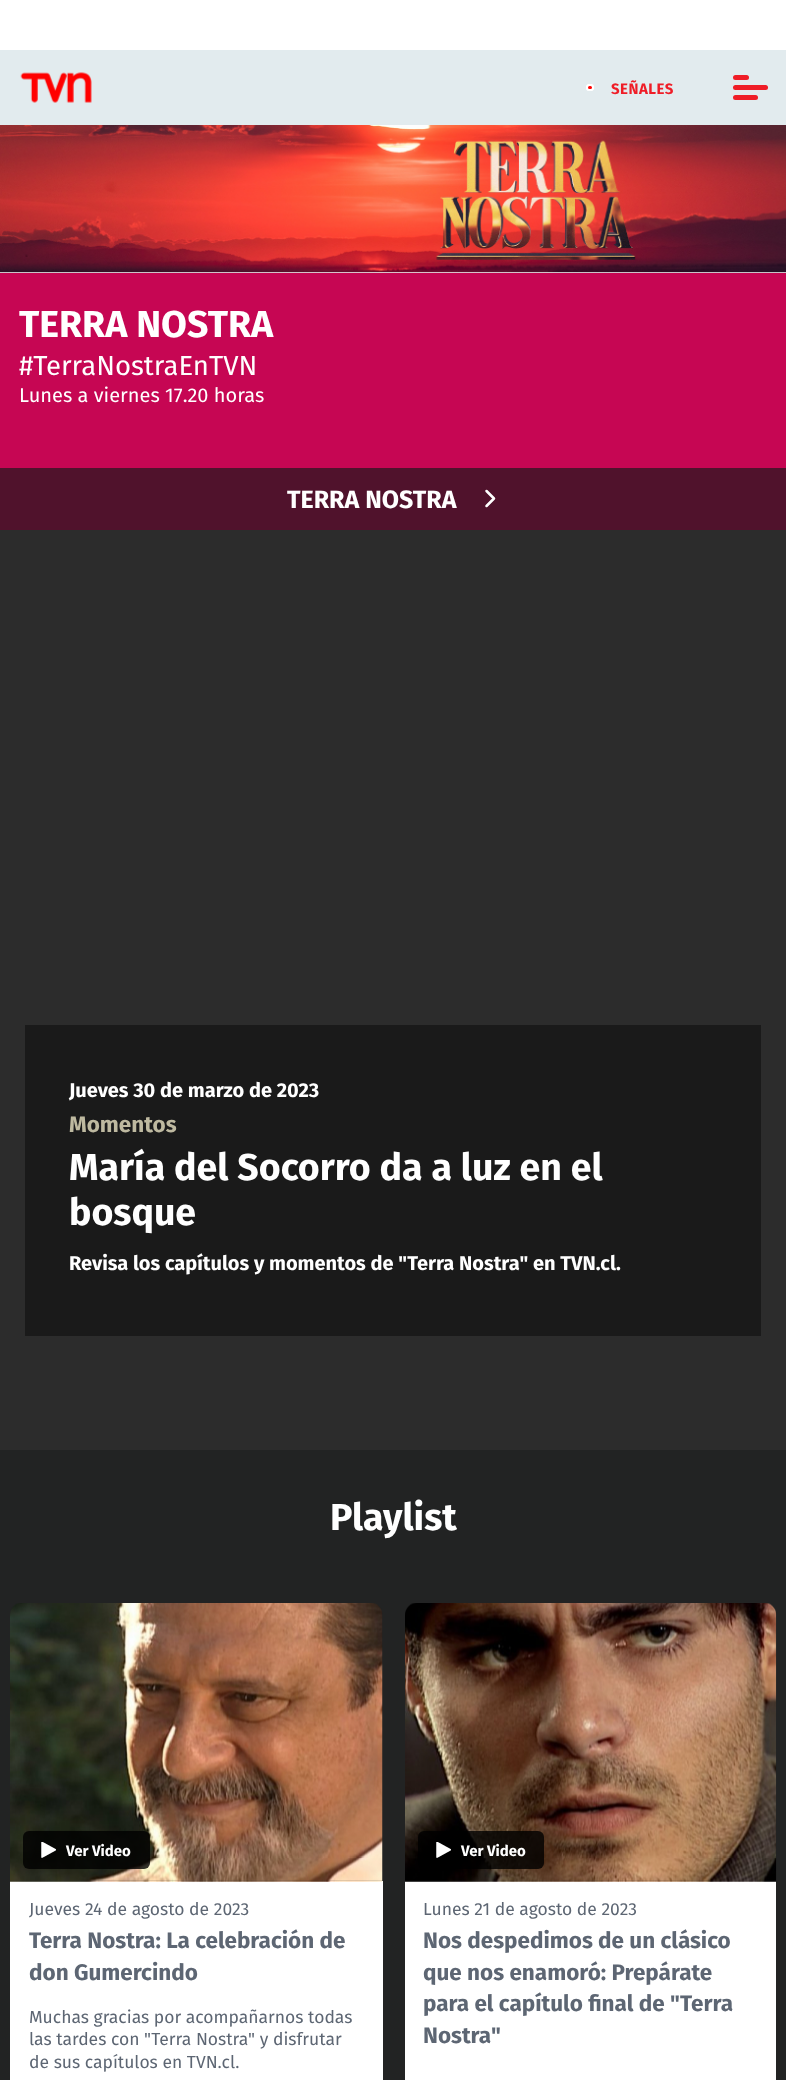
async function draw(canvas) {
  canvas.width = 786
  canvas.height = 2080
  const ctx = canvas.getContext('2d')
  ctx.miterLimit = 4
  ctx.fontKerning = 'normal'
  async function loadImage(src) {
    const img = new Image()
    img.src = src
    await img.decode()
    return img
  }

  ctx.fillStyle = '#fff'
  ctx.fillRect(0, 0, 786, 2080)
  ctx.fillStyle = '#e2ebee'
  ctx.fillRect(0, 50, 786, 75)
  ctx.drawImage(await loadImage('image0.png'), 20, 72, 72, 31)
  ctx.beginPath()
  ctx.roundRect(587, 85, 6, 5, 2.5)
  ctx.strokeStyle = '#fff'
  ctx.lineWidth = 2
  ctx.stroke()
  ctx.fillStyle = '#f00'
  ctx.beginPath()
  ctx.roundRect(587, 85, 6, 5, 2.5)
  ctx.fill()
  ctx.stroke()
  ctx.letterSpacing = '0.5px'
  ctx.font = 'bold 15px Fira Sans'
  ctx.fillStyle = '#ef1d27'
  ctx.fillText('SEÑALES', 611, 94)
  ctx.beginPath()
  ctx.roundRect(733, 85, 35, 5, 2.5)
  ctx.fill()
  ctx.beginPath()
  ctx.roundRect(733, 75, 16, 5, 2.5)
  ctx.fill()
  ctx.beginPath()
  ctx.roundRect(733, 95, 25, 5, 2.5)
  ctx.fill()
  ctx.drawImage(await loadImage('image1.png'), 0, 125, 786, 148)
  ctx.fillStyle = '#c60653'
  ctx.fillRect(0, 273, 786, 195)
  ctx.letterSpacing = '0px'
  ctx.font = 'bold 37.5px Fira Sans'
  ctx.fillStyle = '#fff'
  ctx.fillText('TERRA NOSTRA', 19, 337)
  ctx.font = '27.5px Fira Sans'
  ctx.fillText('#TerraNostraEnTVN', 19, 375)
  ctx.font = '20px Fira Sans'
  ctx.fillText('Lunes a viernes 17.20 horas', 19, 402)
  ctx.fillStyle = '#50122c'
  ctx.fillRect(0, 468, 786, 62)
  ctx.font = 'bold 25px Fira Sans'
  ctx.fillStyle = '#fff'
  ctx.fillText('TERRA NOSTRA', 287, 508)
  ctx.beginPath()
  ctx.moveTo(486.5, 506)
  ctx.lineTo(494, 498.5)
  ctx.lineTo(486.5, 491)
  ctx.lineWidth = 2.5
  ctx.lineCap = 'round'
  ctx.lineJoin = 'round'
  ctx.stroke()
  ctx.fillStyle = '#2c2c2c'
  ctx.fillRect(0, 530, 786, 920)
  ctx.fillStyle = '#1a1a1a'
  ctx.fillRect(25, 1025, 736, 311)
  ctx.font = 'bold 20px Fira Sans'
  ctx.fillStyle = '#fff'
  ctx.fillText('Jueves 30 de marzo de 2023', 69, 1097)
  ctx.font = 'bold 22.5px Fira Sans'
  ctx.fillStyle = '#beb9a0'
  ctx.fillText('Momentos', 69, 1132)
  ctx.font = 'bold 37.5px Fira Sans'
  ctx.fillStyle = '#fff'
  ctx.fillText('María del Socorro da a luz en el', 69, 1180)
  ctx.fillText('bosque', 69, 1225)
  ctx.font = 'bold 20px Fira Sans'
  ctx.fillText('Revisa los capítulos y momentos de "Terra Nostra" en TVN.cl.', 69, 1270)
  ctx.fillStyle = '#222323'
  ctx.fillRect(0, 1450, 786, 630)
  ctx.font = 'bold 37.5px Fira Sans'
  ctx.fillStyle = '#fff'
  ctx.fillText('Playlist', 330, 1530)
  ctx.fillRect(10, 1881, 373, 199)
  ctx.drawImage(await loadImage('image2.png'), 10, 1603, 373, 279)
  ctx.fillStyle = '#000000cc'
  ctx.beginPath()
  ctx.roundRect(23, 1831, 127, 38, 6)
  ctx.fill()
  ctx.drawImage(await loadImage('image3.png'), 41, 1842, 15, 16)
  ctx.font = 'bold 15px Fira Sans'
  ctx.fillStyle = '#fff'
  ctx.fillText('Ver Video', 66, 1856)
  ctx.font = '17.5px Fira Sans'
  ctx.fillStyle = '#5d6673'
  ctx.fillText('Jueves 24 de agosto de 2023', 29, 1915)
  ctx.font = 'bold 22.5px Fira Sans'
  ctx.fillText('Terra Nostra: La celebración de', 29, 1948)
  ctx.fillText('don Gumercindo', 29, 1980)
  ctx.font = '17.5px Fira Sans'
  ctx.fillText('Muchas gracias por acompañarnos todas', 29, 2023)
  ctx.fillText('las tardes con "Terra Nostra" y disfrutar', 29, 2045)
  ctx.fillText('de sus capítulos en TVN.cl.', 29, 2068)
  ctx.fillStyle = '#fff'
  ctx.fillRect(405, 1881, 371, 199)
  ctx.drawImage(await loadImage('image4.png'), 405, 1603, 372, 279)
  ctx.fillStyle = '#000000cc'
  ctx.beginPath()
  ctx.roundRect(418, 1831, 126, 38, 6)
  ctx.fill()
  ctx.drawImage(await loadImage('image5.png'), 436, 1842, 15, 16)
  ctx.font = 'bold 15px Fira Sans'
  ctx.fillStyle = '#fff'
  ctx.fillText('Ver Video', 461, 1856)
  ctx.font = '17.5px Fira Sans'
  ctx.fillStyle = '#5d6673'
  ctx.fillText('Lunes 21 de agosto de 2023', 423, 1915)
  ctx.font = 'bold 22.5px Fira Sans'
  ctx.fillText('Nos despedimos de un clásico', 423, 1948)
  ctx.fillText('que nos enamoró: Prepárate', 423, 1980)
  ctx.fillText('para el capítulo final de "Terra', 423, 2011)
  ctx.fillText('Nostra"', 423, 2043)
}

draw(document.querySelector('canvas'))
